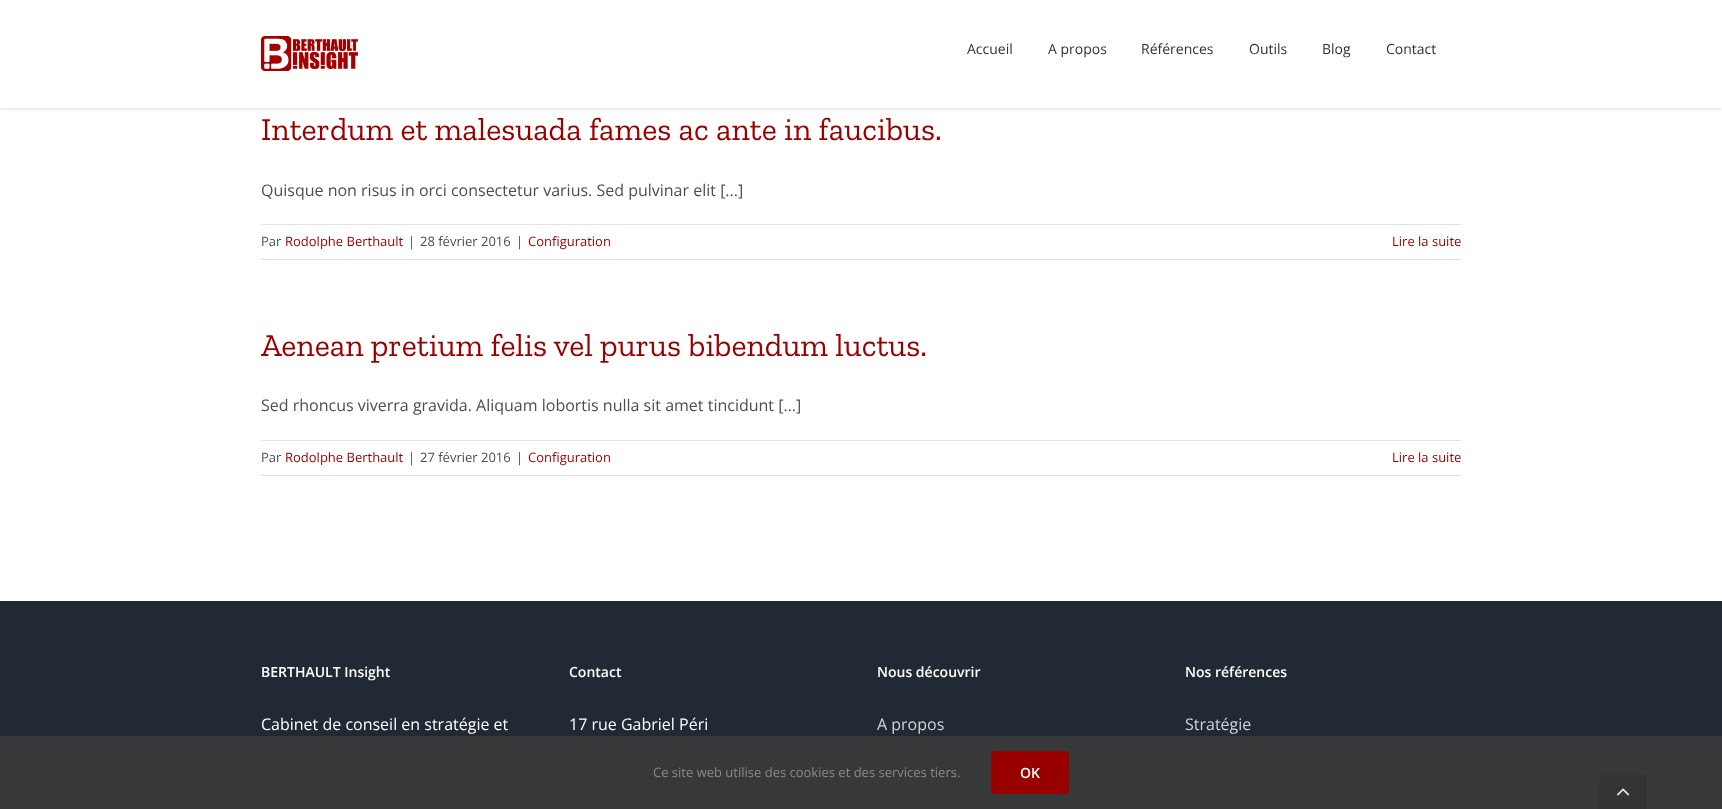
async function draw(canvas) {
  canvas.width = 1722
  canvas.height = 809
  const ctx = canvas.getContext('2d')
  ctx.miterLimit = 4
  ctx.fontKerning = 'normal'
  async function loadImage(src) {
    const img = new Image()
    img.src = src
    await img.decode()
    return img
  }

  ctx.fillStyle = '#fff'
  ctx.fillRect(0, 0, 1722, 809)
  ctx.fillStyle = '#0000001f'
  ctx.filter = 'blur(1.5px)'
  ctx.beginPath()
  ctx.rect(0, 1, 1722, 108)
  ctx.fill()
  ctx.filter = 'none'
  ctx.fillStyle = '#fff'
  ctx.fillRect(0, 0, 1722, 108)
  ctx.drawImage(await loadImage('image0.png'), 261, 36, 97, 35)
  ctx.font = '14px Open Sans'
  ctx.fillStyle = '#333'
  ctx.fillText('Accueil', 967, 54)
  ctx.fillText('A propos', 1048, 54)
  ctx.fillText('Références', 1141, 54)
  ctx.fillText('Outils', 1249, 54)
  ctx.fillText('Blog', 1322, 54)
  ctx.fillText('Contact', 1386, 54)
  ctx.font = '32px Zilla Slab'
  ctx.fillStyle = '#900'
  ctx.fillText('Interdum et malesuada fames ac ante in faucibus.', 261, 140)
  ctx.font = '16px Open Sans'
  ctx.fillStyle = '#4a4e57'
  ctx.fillText('Quisque non risus in orci consectetur varius. Sed pulvinar elit [...]', 261, 196)
  ctx.fillStyle = '#e2e2e2'
  ctx.fillRect(261, 224, 1200, 1)
  ctx.fillRect(261, 259, 1200, 1)
  ctx.font = '13px Open Sans'
  ctx.fillStyle = '#4a4e57'
  ctx.fillText('Par', 261, 246)
  ctx.fillStyle = '#900'
  ctx.fillText('Rodolphe Berthault', 285, 246)
  ctx.fillStyle = '#4a4e57'
  ctx.fillText('|', 408, 246)
  ctx.fillText('28 février 2016', 420, 246)
  ctx.fillText('|', 516, 246)
  ctx.fillStyle = '#900'
  ctx.fillText('Configuration', 528, 246)
  ctx.fillText('Lire la suite', 1392, 246)
  ctx.font = '32px Zilla Slab'
  ctx.fillText('Aenean pretium felis vel purus bibendum luctus.', 261, 356)
  ctx.font = '16px Open Sans'
  ctx.fillStyle = '#4a4e57'
  ctx.fillText('Sed rhoncus viverra gravida. Aliquam lobortis nulla sit amet tincidunt [...]', 261, 411)
  ctx.fillStyle = '#e2e2e2'
  ctx.fillRect(261, 440, 1200, 1)
  ctx.fillRect(261, 475, 1200, 1)
  ctx.font = '13px Open Sans'
  ctx.fillStyle = '#4a4e57'
  ctx.fillText('Par', 261, 462)
  ctx.fillStyle = '#900'
  ctx.fillText('Rodolphe Berthault', 285, 462)
  ctx.fillStyle = '#4a4e57'
  ctx.fillText('|', 408, 462)
  ctx.fillText('27 février 2016', 420, 462)
  ctx.fillText('|', 516, 462)
  ctx.fillStyle = '#900'
  ctx.fillText('Configuration', 528, 462)
  ctx.fillText('Lire la suite', 1392, 462)
  ctx.fillStyle = '#212934'
  ctx.fillRect(0, 601, 1722, 135)
  ctx.font = '600 14px Open Sans'
  ctx.fillStyle = '#fff'
  ctx.fillText('BERTHAULT Insight', 261, 677)
  ctx.font = '16px Open Sans'
  ctx.fillText('Cabinet de conseil en stratégie et', 261, 730)
  ctx.font = '600 14px Open Sans'
  ctx.fillText('Contact', 569, 677)
  ctx.font = '16px Open Sans'
  ctx.fillText('17 rue Gabriel Péri', 569, 730)
  ctx.font = '600 14px Open Sans'
  ctx.fillText('Nous découvrir', 877, 677)
  ctx.font = '16px Open Sans'
  ctx.fillStyle = '#d3d4d6'
  ctx.fillText('A propos', 877, 730)
  ctx.font = '600 14px Open Sans'
  ctx.fillStyle = '#fff'
  ctx.fillText('Nos références', 1185, 677)
  ctx.font = '16px Open Sans'
  ctx.fillStyle = '#d3d4d6'
  ctx.fillText('Stratégie', 1185, 730)
  ctx.fillStyle = '#363839'
  ctx.fillRect(0, 736, 1722, 73)
  ctx.font = '13px Open Sans'
  ctx.fillStyle = '#8c8989'
  ctx.fillText('Ce site web utilise des cookies et des services tiers.', 653, 777)
  ctx.fillStyle = '#900'
  ctx.beginPath()
  ctx.roundRect(991, 751, 78, 43, 4)
  ctx.fill()
  ctx.font = '600 14px Open Sans'
  ctx.fillStyle = '#fff'
  ctx.fillText('OK', 1020, 778)
  ctx.fillStyle = '#333434'
  ctx.beginPath()
  ctx.roundRect(1599, 774, 48, 35, [6, 6, 0, 0])
  ctx.fill()
  ctx.drawImage(await loadImage('image1.png'), 1617, 788, 13, 8)
}

draw(document.querySelector('canvas'))
